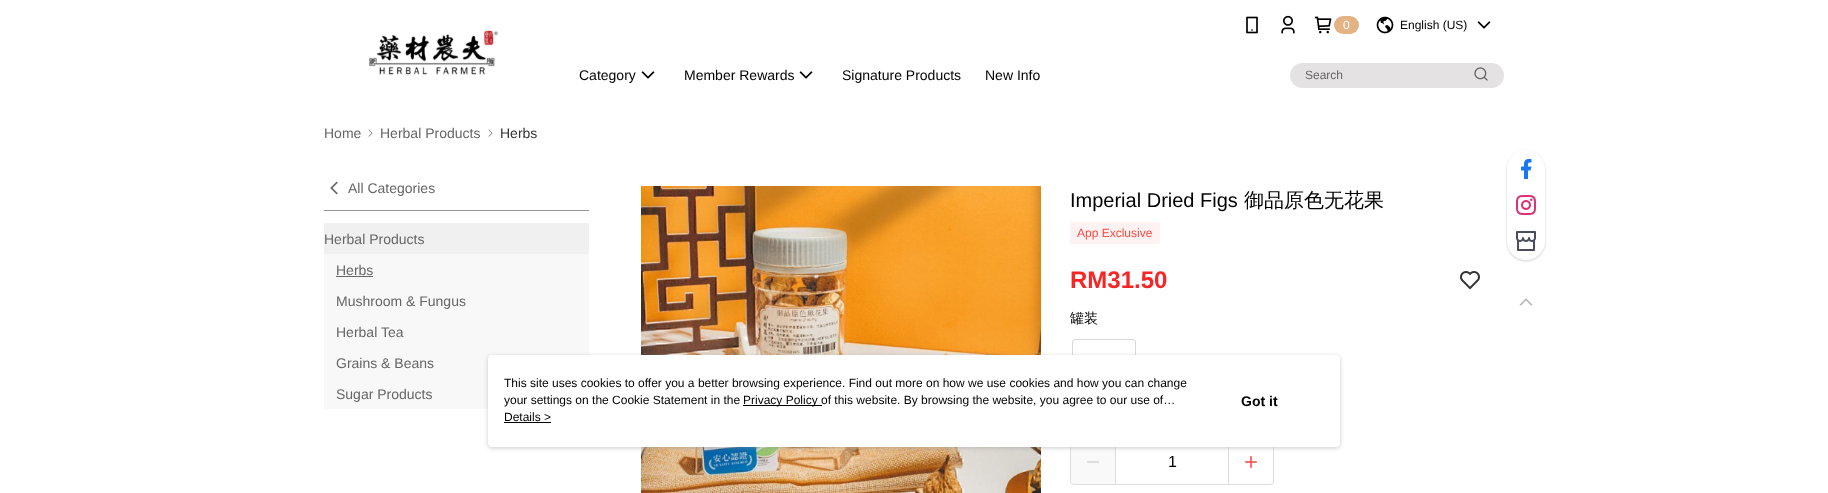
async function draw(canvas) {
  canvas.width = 1828
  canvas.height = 493
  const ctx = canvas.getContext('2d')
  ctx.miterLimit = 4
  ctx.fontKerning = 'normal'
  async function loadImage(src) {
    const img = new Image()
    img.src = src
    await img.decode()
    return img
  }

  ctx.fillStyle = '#fff'
  ctx.fillRect(0, 0, 1828, 493)
  ctx.drawImage(await loadImage('image0.png'), 369, 30, 129, 45)
  ctx.drawImage(await loadImage('image1.png'), 1246, 16, 12, 18)
  ctx.drawImage(await loadImage('image2.png'), 1281, 15, 14, 19)
  ctx.drawImage(await loadImage('image3.png'), 1314, 16, 18, 18)
  ctx.fillStyle = '#e4b384'
  ctx.beginPath()
  ctx.roundRect(1334, 16, 25, 18, 9)
  ctx.fill()
  ctx.font = '12px Liberation Sans'
  ctx.fillStyle = '#fff'
  ctx.fillText('0', 1343, 29)
  ctx.drawImage(await loadImage('image4.png'), 1376, 16, 18, 18)
  ctx.fillStyle = '#000'
  ctx.fillText('English (US)', 1400, 29)
  ctx.drawImage(await loadImage('image5.png'), 1477, 21, 14, 8)
  ctx.font = '14px Liberation Sans'
  ctx.fillText('Category', 579, 80)
  ctx.drawImage(await loadImage('image5.png'), 641, 71, 14, 8)
  ctx.fillText('Member Rewards', 684, 80)
  ctx.drawImage(await loadImage('image5.png'), 799, 71, 14, 8)
  ctx.fillText('Signature Products', 842, 80)
  ctx.fillText('New Info', 985, 80)
  ctx.fillStyle = '#e4e2e2'
  ctx.beginPath()
  ctx.roundRect(1290, 63, 214, 25, 12.5)
  ctx.fill()
  ctx.font = '12px Liberation Sans'
  ctx.fillStyle = '#666'
  ctx.fillText('Search', 1305, 79)
  ctx.drawImage(await loadImage('image6.png'), 1474, 67, 14, 14)
  ctx.font = '14px Liberation Sans'
  ctx.fillText('Home', 324, 138)
  ctx.drawImage(await loadImage('image7.png'), 368, 129, 5, 8)
  ctx.fillText('Herbal Products', 380, 138)
  ctx.drawImage(await loadImage('image7.png'), 488, 129, 5, 8)
  ctx.fillStyle = '#333'
  ctx.fillText('Herbs', 500, 138)
  ctx.fillStyle = '#979797'
  ctx.fillRect(324, 210, 265, 1)
  ctx.drawImage(await loadImage('image8.png'), 330, 181, 8, 14)
  ctx.fillStyle = '#666'
  ctx.fillText('All Categories', 348, 193)
  ctx.fillStyle = '#f0f0f0'
  ctx.fillRect(324, 223, 265, 31)
  ctx.fillStyle = '#666'
  ctx.fillText('Herbal Products', 324, 244)
  ctx.fillStyle = '#f8f8f8'
  ctx.fillRect(324, 254, 265, 155)
  ctx.fillStyle = '#666'
  ctx.fillText('Herbs', 336, 275)
  ctx.fillRect(336, 276, 37, 1)
  ctx.fillText('Mushroom & Fungus', 336, 306)
  ctx.fillText('Herbal Tea', 336, 337)
  ctx.fillText('Grains & Beans', 336, 368)
  ctx.fillText('Sugar Products', 336, 399)
  ctx.drawImage(await loadImage('image9.png'), 641, 186, 400, 307)
  ctx.font = '20px Liberation Sans'
  ctx.fillStyle = '#000'
  ctx.fillText('Imperial Dried Figs', 1070, 207)
  ctx.font = '500 20px WenQuanYi Zen Hei'
  ctx.fillText('御品原色无花果', 1244, 207)
  ctx.fillStyle = '#fff2f2'
  ctx.beginPath()
  ctx.roundRect(1070.5, 222.5, 89, 21, 1.5)
  ctx.fill()
  ctx.strokeStyle = '#fff2f2'
  ctx.stroke()
  ctx.font = '12px Liberation Sans'
  ctx.fillStyle = '#f94c43'
  ctx.fillText('App Exclusive', 1077, 237)
  ctx.font = 'bold 24px Liberation Sans'
  ctx.fillStyle = '#f82525'
  ctx.fillText('RM31.50', 1070, 288)
  ctx.drawImage(await loadImage('image10.png'), 1460, 271, 20, 19)
  ctx.font = '500 14px WenQuanYi Zen Hei'
  ctx.fillStyle = '#000'
  ctx.fillText('罐装', 1070, 323)
  ctx.beginPath()
  ctx.roundRect(1072.5, 339.5, 63, 38, 2.5)
  ctx.strokeStyle = '#d8d8d8'
  ctx.stroke()
  ctx.beginPath()
  ctx.roundRect(1070.5, 439.5, 203, 45, 3.5)
  ctx.strokeStyle = '#ddd'
  ctx.stroke()
  ctx.fillStyle = '#f1f1f166'
  ctx.fillRect(1071, 447, 44, 37)
  ctx.fillStyle = '#ddd'
  ctx.fillRect(1087, 461, 12, 2)
  ctx.fillRect(1228, 440, 1, 44)
  ctx.fillRect(1115, 440, 1, 44)
  ctx.font = '16px Liberation Sans'
  ctx.fillStyle = '#000'
  ctx.fillText('1', 1168, 467)
  ctx.drawImage(await loadImage('image11.png'), 1245, 456, 12, 12)
  ctx.save()
  ctx.beginPath()
  ctx.moveTo(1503, 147)
  ctx.lineTo(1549, 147)
  ctx.lineTo(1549, 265)
  ctx.lineTo(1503, 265)
  ctx.closePath()
  ctx.moveTo(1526, 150)
  ctx.bezierCurveTo(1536.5, 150, 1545, 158.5, 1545, 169)
  ctx.lineTo(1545, 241)
  ctx.bezierCurveTo(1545, 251.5, 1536.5, 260, 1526, 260)
  ctx.bezierCurveTo(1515.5, 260, 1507, 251.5, 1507, 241)
  ctx.lineTo(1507, 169)
  ctx.bezierCurveTo(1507, 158.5, 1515.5, 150, 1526, 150)
  ctx.closePath()
  ctx.clip('evenodd')
  ctx.fillStyle = '#00000033'
  ctx.filter = 'blur(1px)'
  ctx.beginPath()
  ctx.roundRect(1507, 151, 38, 110, 19)
  ctx.fill()
  ctx.filter = 'none'
  ctx.restore()
  ctx.fillStyle = '#ffffffe6'
  ctx.beginPath()
  ctx.roundRect(1507.5, 150.5, 37, 109, 18.5)
  ctx.fill()
  ctx.strokeStyle = '#fdfdfd'
  ctx.stroke()
  ctx.drawImage(await loadImage('image12.png'), 1521, 159, 11, 20)
  ctx.drawImage(await loadImage('image13.png'), 1516, 195, 20, 20)
  ctx.drawImage(await loadImage('image14.png'), 1516, 231, 20, 20)
  ctx.drawImage(await loadImage('image15.png'), 1519, 298, 14, 8)
  ctx.fillStyle = '#97979780'
  ctx.filter = 'blur(2px)'
  ctx.beginPath()
  ctx.roundRect(488, 356, 852, 92, 4)
  ctx.fill()
  ctx.filter = 'none'
  ctx.fillStyle = '#fff'
  ctx.beginPath()
  ctx.roundRect(488, 355, 852, 92, 4)
  ctx.fill()
  ctx.font = '12px Liberation Sans'
  ctx.fillStyle = '#000'
  ctx.fillText('This site uses cookies to offer you a better browsing experience. Find out more on how we use cookies and how you can change', 504, 387)
  ctx.fillText('your settings on the Cookie Statement in the', 504, 404)
  ctx.fillRect(743, 405, 75, 1)
  ctx.fillText('Privacy Policy of this website. By browsing the website, you agree to our use of…', 743, 404)
  ctx.fillRect(818, 405, 4, 1)
  ctx.fillText('Details >', 504, 421)
  ctx.fillRect(504, 422, 47, 1)
  ctx.font = 'bold 14px Liberation Sans'
  ctx.fillText('Got it', 1241, 406)
}

draw(document.querySelector('canvas'))
